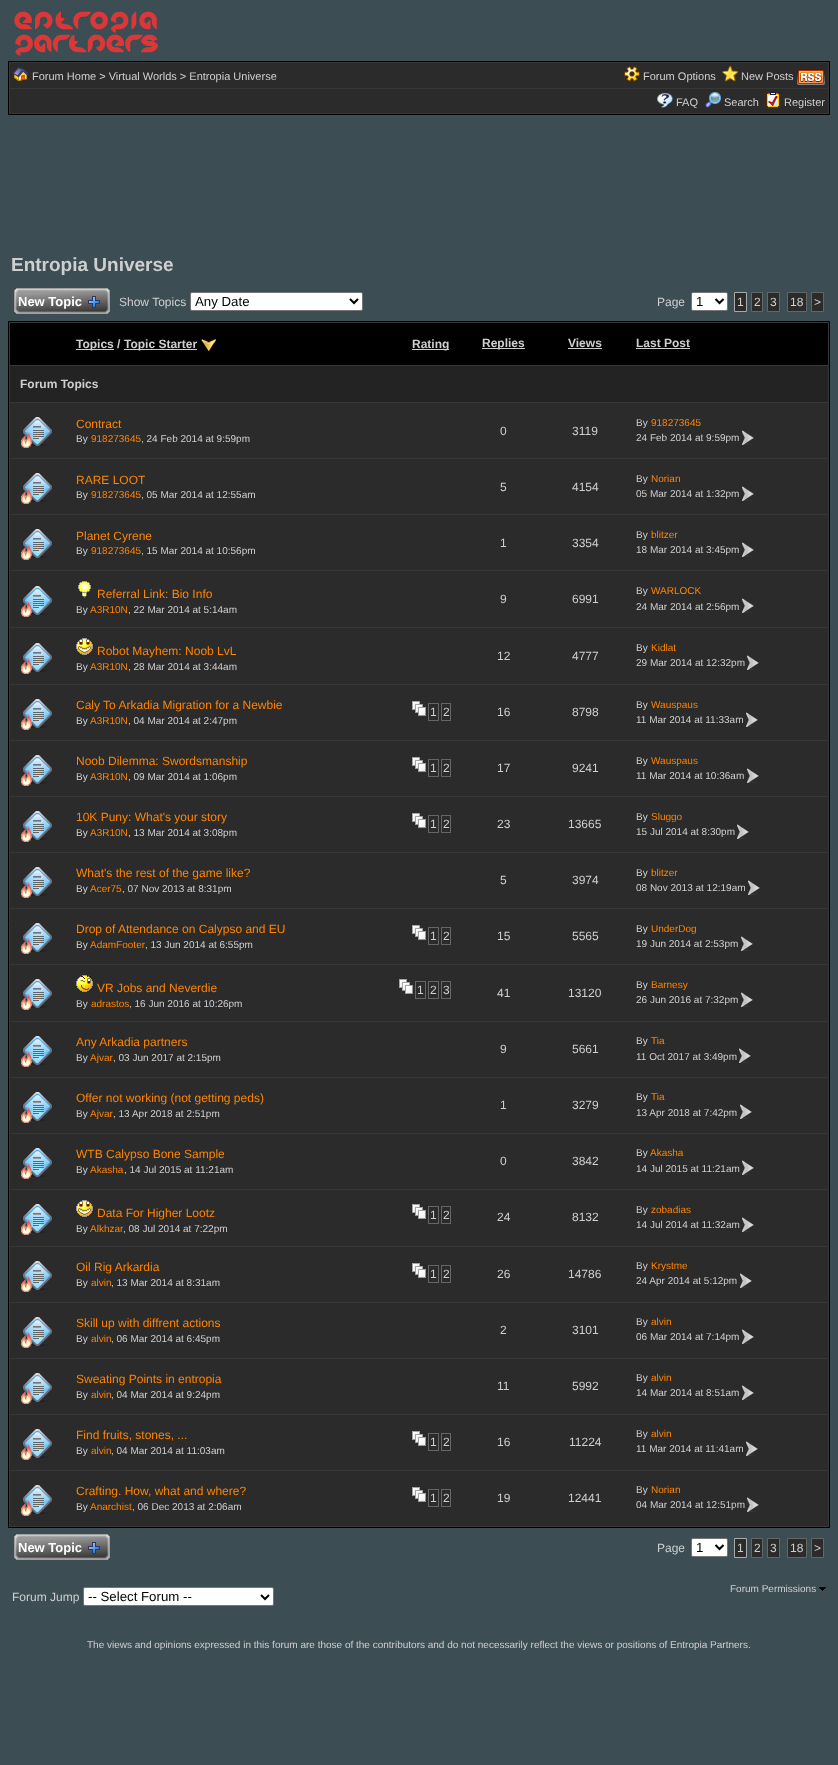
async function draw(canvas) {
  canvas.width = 838
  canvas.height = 1765
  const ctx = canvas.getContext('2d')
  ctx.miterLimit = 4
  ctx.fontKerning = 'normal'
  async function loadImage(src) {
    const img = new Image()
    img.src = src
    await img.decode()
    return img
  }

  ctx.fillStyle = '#3c4d54'
  ctx.fillRect(0, 0, 838, 1765)
  ctx.drawImage(await loadImage('image0.png'), 11, 8, 150, 48)
  ctx.fillStyle = '#373737'
  ctx.beginPath()
  ctx.rect(8.5, 61.5, 821, 53)
  ctx.fill()
  ctx.strokeStyle = '#000'
  ctx.stroke()
  ctx.fillStyle = '#2b2b2b'
  ctx.fillRect(10, 63, 818, 25)
  ctx.drawImage(await loadImage('image1.png'), 13, 67, 16, 14)
  ctx.font = '11px Liberation Sans'
  ctx.fillStyle = '#cfcfcf'
  ctx.fillText('Forum Home > Virtual Worlds > Entropia Universe', 32, 80)
  ctx.drawImage(await loadImage('image2.png'), 624, 66, 16, 16)
  ctx.fillText('Forum Options', 643, 80)
  ctx.drawImage(await loadImage('image3.png'), 722, 66, 16, 16)
  ctx.fillText('New Posts', 741, 80)
  ctx.drawImage(await loadImage('image4.png'), 797, 69, 28, 16)
  ctx.fillStyle = '#2b2b2b'
  ctx.fillRect(10, 89, 818, 24)
  ctx.drawImage(await loadImage('image5.png'), 657, 93, 16, 15)
  ctx.fillStyle = '#cfcfcf'
  ctx.fillText('FAQ', 676, 106)
  ctx.drawImage(await loadImage('image6.png'), 705, 92, 16, 16)
  ctx.fillText('Search', 724, 106)
  ctx.drawImage(await loadImage('image7.png'), 766, 92, 14, 16)
  ctx.fillText('Register', 784, 106)
  ctx.font = 'bold 19px Liberation Sans'
  ctx.fillText('Entropia Universe', 11, 271)
  ctx.drawImage(await loadImage('image8.png'), 14, 288, 96, 26)
  ctx.font = 'bold 13px Liberation Sans'
  ctx.fillStyle = '#fff'
  ctx.fillText('New Topic', 18, 306)
  ctx.drawImage(await loadImage('image9.png'), 88, 296, 12, 12)
  ctx.font = '12px Liberation Sans'
  ctx.fillStyle = '#cfcfcf'
  ctx.fillText('Show Topics', 119, 306)
  ctx.fillStyle = '#fff'
  ctx.beginPath()
  ctx.roundRect(190.5, 292.5, 172, 18, 1.5)
  ctx.fill()
  ctx.strokeStyle = '#767676'
  ctx.stroke()
  ctx.beginPath()
  ctx.moveTo(350, 299)
  ctx.lineTo(354, 303)
  ctx.lineTo(358, 299)
  ctx.strokeStyle = '#000'
  ctx.lineWidth = 2
  ctx.stroke()
  ctx.font = '13.25px Liberation Sans'
  ctx.fillStyle = '#000'
  ctx.fillText('Any Date', 195, 306)
  ctx.font = '12px Liberation Sans'
  ctx.fillStyle = '#cfcfcf'
  ctx.fillText('Page', 657, 306)
  ctx.fillStyle = '#fff'
  ctx.beginPath()
  ctx.roundRect(691.5, 292.5, 36, 18, 1.5)
  ctx.fill()
  ctx.strokeStyle = '#767676'
  ctx.lineWidth = 1
  ctx.stroke()
  ctx.beginPath()
  ctx.moveTo(715.5, 299)
  ctx.lineTo(719.5, 303)
  ctx.lineTo(723.5, 299)
  ctx.strokeStyle = '#000'
  ctx.lineWidth = 2
  ctx.stroke()
  ctx.font = '13.25px Liberation Sans'
  ctx.fillStyle = '#000'
  ctx.fillText('1', 696, 306)
  ctx.fillStyle = '#2b2b2b'
  ctx.beginPath()
  ctx.rect(734.5, 292.5, 12, 19)
  ctx.fill()
  ctx.strokeStyle = '#aaa'
  ctx.lineWidth = 1
  ctx.stroke()
  ctx.font = '12px Liberation Sans'
  ctx.fillStyle = '#cfcfcf'
  ctx.fillText('1', 737, 306)
  ctx.fillStyle = '#2b2b2b'
  ctx.beginPath()
  ctx.rect(751.5, 292.5, 11, 19)
  ctx.fill()
  ctx.strokeStyle = '#666'
  ctx.stroke()
  ctx.fillStyle = '#cfcfcf'
  ctx.fillText('2', 754, 306)
  ctx.fillStyle = '#2b2b2b'
  ctx.beginPath()
  ctx.rect(767.5, 292.5, 12, 19)
  ctx.fill()
  ctx.stroke()
  ctx.fillStyle = '#cfcfcf'
  ctx.fillText('3', 770, 306)
  ctx.fillStyle = '#2b2b2b'
  ctx.beginPath()
  ctx.rect(787.5, 292.5, 19, 19)
  ctx.fill()
  ctx.stroke()
  ctx.fillStyle = '#cfcfcf'
  ctx.fillText('18', 790, 306)
  ctx.fillStyle = '#2b2b2b'
  ctx.beginPath()
  ctx.rect(811.5, 292.5, 12, 19)
  ctx.fill()
  ctx.stroke()
  ctx.fillStyle = '#cfcfcf'
  ctx.fillText('>', 814, 306)
  ctx.fillStyle = '#373737'
  ctx.beginPath()
  ctx.rect(8.5, 321.5, 821, 1206)
  ctx.fill()
  ctx.strokeStyle = '#000'
  ctx.stroke()
  ctx.fillStyle = '#000'
  ctx.fillRect(10, 323, 818, 42)
  ctx.fillStyle = '#cfcfcf'
  ctx.fillRect(76, 349, 38, 1)
  ctx.font = 'bold 12px Liberation Sans'
  ctx.fillText('Topics /', 76, 348)
  ctx.fillRect(124, 349, 73, 1)
  ctx.fillText('Topic Starter', 124, 348)
  ctx.drawImage(await loadImage('image10.png'), 201, 339, 15, 12)
  ctx.fillRect(412, 349, 37, 1)
  ctx.fillText('Rating', 412, 348)
  ctx.fillRect(482, 348, 43, 1)
  ctx.fillText('Replies', 482, 347)
  ctx.fillText('Views', 568, 347)
  ctx.fillRect(568, 348, 34, 1)
  ctx.fillText('Last Post', 636, 347)
  ctx.fillRect(636, 348, 54, 1)
  ctx.fillStyle = '#232323'
  ctx.fillRect(10, 366, 818, 36)
  ctx.fillStyle = '#cfcfcf'
  ctx.fillText('Forum Topics', 20, 388)
  ctx.fillStyle = '#2b2b2b'
  ctx.fillRect(10, 403, 818, 55)
  ctx.drawImage(await loadImage('image11.png'), 23, 417, 29, 29)
  ctx.drawImage(await loadImage('image12.png'), 21, 432, 11, 16)
  ctx.font = '12px Liberation Sans'
  ctx.fillStyle = '#ff8400'
  ctx.fillText('Contract', 76, 428)
  ctx.font = '10px Liberation Sans'
  ctx.fillStyle = '#cfcfcf'
  ctx.fillText('By', 76, 442)
  ctx.fillStyle = '#ff8400'
  ctx.fillText('918273645', 91, 442)
  ctx.fillStyle = '#cfcfcf'
  ctx.fillText(', 24 Feb 2014 at 9:59pm', 141, 442)
  ctx.font = '12px Liberation Sans'
  ctx.fillText('0', 500, 435)
  ctx.fillText('3119', 572, 435)
  ctx.font = '10px Liberation Sans'
  ctx.fillText('By', 636, 426)
  ctx.fillStyle = '#ff8400'
  ctx.fillText('918273645', 651, 426)
  ctx.fillStyle = '#cfcfcf'
  ctx.fillText('24 Feb 2014 at 9:59pm', 636, 441)
  ctx.drawImage(await loadImage('image13.png'), 742, 430, 12, 15)
  ctx.fillStyle = '#2b2b2b'
  ctx.fillRect(10, 459, 818, 55)
  ctx.drawImage(await loadImage('image11.png'), 23, 473, 29, 29)
  ctx.drawImage(await loadImage('image12.png'), 21, 488, 11, 16)
  ctx.font = '12px Liberation Sans'
  ctx.fillStyle = '#ff8400'
  ctx.fillText('RARE LOOT', 76, 484)
  ctx.font = '10px Liberation Sans'
  ctx.fillStyle = '#cfcfcf'
  ctx.fillText('By', 76, 498)
  ctx.fillStyle = '#ff8400'
  ctx.fillText('918273645', 91, 498)
  ctx.fillStyle = '#cfcfcf'
  ctx.fillText(', 05 Mar 2014 at 12:55am', 141, 498)
  ctx.font = '12px Liberation Sans'
  ctx.fillText('5', 500, 491)
  ctx.fillText('4154', 572, 491)
  ctx.font = '10px Liberation Sans'
  ctx.fillText('By', 636, 482)
  ctx.fillStyle = '#ff8400'
  ctx.fillText('Norian', 651, 482)
  ctx.fillStyle = '#cfcfcf'
  ctx.fillText('05 Mar 2014 at 1:32pm', 636, 497)
  ctx.drawImage(await loadImage('image13.png'), 742, 486, 12, 15)
  ctx.fillStyle = '#2b2b2b'
  ctx.fillRect(10, 515, 818, 55)
  ctx.drawImage(await loadImage('image11.png'), 23, 529, 29, 29)
  ctx.drawImage(await loadImage('image12.png'), 21, 544, 11, 16)
  ctx.font = '12px Liberation Sans'
  ctx.fillStyle = '#ff8400'
  ctx.fillText('Planet Cyrene', 76, 540)
  ctx.font = '10px Liberation Sans'
  ctx.fillStyle = '#cfcfcf'
  ctx.fillText('By', 76, 554)
  ctx.fillStyle = '#ff8400'
  ctx.fillText('918273645', 91, 554)
  ctx.fillStyle = '#cfcfcf'
  ctx.fillText(', 15 Mar 2014 at 10:56pm', 141, 554)
  ctx.font = '12px Liberation Sans'
  ctx.fillText('1', 500, 547)
  ctx.fillText('3354', 572, 547)
  ctx.font = '10px Liberation Sans'
  ctx.fillText('By', 636, 538)
  ctx.fillStyle = '#ff8400'
  ctx.fillText('blitzer', 651, 538)
  ctx.fillStyle = '#cfcfcf'
  ctx.fillText('18 Mar 2014 at 3:45pm', 636, 553)
  ctx.drawImage(await loadImage('image13.png'), 742, 542, 12, 15)
  ctx.fillStyle = '#2b2b2b'
  ctx.fillRect(10, 571, 818, 56)
  ctx.drawImage(await loadImage('image11.png'), 23, 586, 29, 29)
  ctx.drawImage(await loadImage('image12.png'), 21, 601, 11, 16)
  ctx.drawImage(await loadImage('image14.png'), 78, 581, 13, 17)
  ctx.font = '12px Liberation Sans'
  ctx.fillStyle = '#ff8400'
  ctx.fillText('Referral Link: Bio Info', 97, 598)
  ctx.font = '10px Liberation Sans'
  ctx.fillStyle = '#cfcfcf'
  ctx.fillText('By', 76, 613)
  ctx.fillStyle = '#ff8400'
  ctx.fillText('A3R10N', 90, 613)
  ctx.fillStyle = '#cfcfcf'
  ctx.fillText(', 22 Mar 2014 at 5:14am', 128, 613)
  ctx.font = '12px Liberation Sans'
  ctx.fillText('9', 500, 603)
  ctx.fillText('6991', 572, 603)
  ctx.font = '10px Liberation Sans'
  ctx.fillText('By', 636, 594)
  ctx.fillStyle = '#ff8400'
  ctx.fillText('WARLOCK', 651, 594)
  ctx.fillStyle = '#cfcfcf'
  ctx.fillText('24 Mar 2014 at 2:56pm', 636, 610)
  ctx.drawImage(await loadImage('image13.png'), 742, 598, 12, 15)
  ctx.fillStyle = '#2b2b2b'
  ctx.fillRect(10, 628, 818, 56)
  ctx.drawImage(await loadImage('image11.png'), 23, 643, 29, 29)
  ctx.drawImage(await loadImage('image12.png'), 21, 658, 11, 16)
  ctx.drawImage(await loadImage('image15.png'), 76, 638, 17, 17)
  ctx.font = '12px Liberation Sans'
  ctx.fillStyle = '#ff8400'
  ctx.fillText('Robot Mayhem: Noob LvL', 97, 655)
  ctx.font = '10px Liberation Sans'
  ctx.fillStyle = '#cfcfcf'
  ctx.fillText('By', 76, 670)
  ctx.fillStyle = '#ff8400'
  ctx.fillText('A3R10N', 90, 670)
  ctx.fillStyle = '#cfcfcf'
  ctx.fillText(', 28 Mar 2014 at 3:44am', 128, 670)
  ctx.font = '12px Liberation Sans'
  ctx.fillText('12', 497, 660)
  ctx.fillText('4777', 572, 660)
  ctx.font = '10px Liberation Sans'
  ctx.fillText('By', 636, 651)
  ctx.fillStyle = '#ff8400'
  ctx.fillText('Kidlat', 651, 651)
  ctx.fillStyle = '#cfcfcf'
  ctx.fillText('29 Mar 2014 at 12:32pm', 636, 666)
  ctx.drawImage(await loadImage('image13.png'), 747, 655, 12, 15)
  ctx.fillStyle = '#2b2b2b'
  ctx.fillRect(10, 685, 818, 55)
  ctx.drawImage(await loadImage('image11.png'), 23, 699, 29, 29)
  ctx.drawImage(await loadImage('image12.png'), 21, 714, 11, 16)
  ctx.font = '12px Liberation Sans'
  ctx.fillStyle = '#ff8400'
  ctx.fillText('Caly To Arkadia Migration for a Newbie', 76, 709)
  ctx.font = '10px Liberation Sans'
  ctx.fillStyle = '#cfcfcf'
  ctx.fillText('By', 76, 724)
  ctx.fillStyle = '#ff8400'
  ctx.fillText('A3R10N', 90, 724)
  ctx.fillStyle = '#cfcfcf'
  ctx.fillText(', 04 Mar 2014 at 2:47pm', 128, 724)
  ctx.drawImage(await loadImage('image16.png'), 412, 701, 14, 15)
  ctx.strokeStyle = '#666'
  ctx.strokeRect(428.5, 703.5, 10, 17)
  ctx.font = '12px Liberation Sans'
  ctx.fillText('1', 430, 716)
  ctx.strokeRect(441.5, 703.5, 9, 17)
  ctx.fillText('2', 443, 716)
  ctx.fillText('16', 497, 716)
  ctx.fillText('8798', 572, 716)
  ctx.font = '10px Liberation Sans'
  ctx.fillText('By', 636, 708)
  ctx.fillStyle = '#ff8400'
  ctx.fillText('Wauspaus', 651, 708)
  ctx.fillStyle = '#cfcfcf'
  ctx.fillText('11 Mar 2014 at 11:33am', 636, 723)
  ctx.drawImage(await loadImage('image13.png'), 746, 712, 12, 15)
  ctx.fillStyle = '#2b2b2b'
  ctx.fillRect(10, 741, 818, 55)
  ctx.drawImage(await loadImage('image11.png'), 23, 755, 29, 29)
  ctx.drawImage(await loadImage('image12.png'), 21, 770, 11, 16)
  ctx.font = '12px Liberation Sans'
  ctx.fillStyle = '#ff8400'
  ctx.fillText('Noob Dilemma: Swordsmanship', 76, 765)
  ctx.font = '10px Liberation Sans'
  ctx.fillStyle = '#cfcfcf'
  ctx.fillText('By', 76, 780)
  ctx.fillStyle = '#ff8400'
  ctx.fillText('A3R10N', 90, 780)
  ctx.fillStyle = '#cfcfcf'
  ctx.fillText(', 09 Mar 2014 at 1:06pm', 128, 780)
  ctx.drawImage(await loadImage('image16.png'), 412, 757, 14, 15)
  ctx.strokeRect(428.5, 759.5, 10, 17)
  ctx.font = '12px Liberation Sans'
  ctx.fillText('1', 430, 772)
  ctx.strokeRect(441.5, 759.5, 9, 17)
  ctx.fillText('2', 443, 772)
  ctx.fillText('17', 497, 772)
  ctx.fillText('9241', 572, 772)
  ctx.font = '10px Liberation Sans'
  ctx.fillText('By', 636, 764)
  ctx.fillStyle = '#ff8400'
  ctx.fillText('Wauspaus', 651, 764)
  ctx.fillStyle = '#cfcfcf'
  ctx.fillText('11 Mar 2014 at 10:36am', 636, 779)
  ctx.drawImage(await loadImage('image13.png'), 747, 768, 12, 15)
  ctx.fillStyle = '#2b2b2b'
  ctx.fillRect(10, 797, 818, 55)
  ctx.drawImage(await loadImage('image11.png'), 23, 811, 29, 29)
  ctx.drawImage(await loadImage('image12.png'), 21, 826, 11, 16)
  ctx.font = '12px Liberation Sans'
  ctx.fillStyle = '#ff8400'
  ctx.fillText('10K Puny: What\'s your story', 76, 821)
  ctx.font = '10px Liberation Sans'
  ctx.fillStyle = '#cfcfcf'
  ctx.fillText('By', 76, 836)
  ctx.fillStyle = '#ff8400'
  ctx.fillText('A3R10N', 90, 836)
  ctx.fillStyle = '#cfcfcf'
  ctx.fillText(', 13 Mar 2014 at 3:08pm', 128, 836)
  ctx.drawImage(await loadImage('image16.png'), 412, 813, 14, 15)
  ctx.strokeRect(428.5, 815.5, 10, 17)
  ctx.font = '12px Liberation Sans'
  ctx.fillText('1', 430, 828)
  ctx.strokeRect(441.5, 815.5, 9, 17)
  ctx.fillText('2', 443, 828)
  ctx.fillText('23', 497, 828)
  ctx.fillText('13665', 568, 828)
  ctx.font = '10px Liberation Sans'
  ctx.fillText('By', 636, 820)
  ctx.fillStyle = '#ff8400'
  ctx.fillText('Sluggo', 651, 820)
  ctx.fillStyle = '#cfcfcf'
  ctx.fillText('15 Jul 2014 at 8:30pm', 636, 835)
  ctx.drawImage(await loadImage('image13.png'), 737, 824, 12, 15)
  ctx.fillStyle = '#2b2b2b'
  ctx.fillRect(10, 853, 818, 55)
  ctx.drawImage(await loadImage('image11.png'), 23, 867, 29, 29)
  ctx.drawImage(await loadImage('image12.png'), 21, 882, 11, 16)
  ctx.font = '12px Liberation Sans'
  ctx.fillStyle = '#ff8400'
  ctx.fillText('What\'s the rest of the game like?', 76, 877)
  ctx.font = '10px Liberation Sans'
  ctx.fillStyle = '#cfcfcf'
  ctx.fillText('By', 76, 892)
  ctx.fillStyle = '#ff8400'
  ctx.fillText('Acer75', 90, 892)
  ctx.fillStyle = '#cfcfcf'
  ctx.fillText(', 07 Nov 2013 at 8:31pm', 122, 892)
  ctx.font = '12px Liberation Sans'
  ctx.fillText('5', 500, 884)
  ctx.fillText('3974', 572, 884)
  ctx.font = '10px Liberation Sans'
  ctx.fillText('By', 636, 876)
  ctx.fillStyle = '#ff8400'
  ctx.fillText('blitzer', 651, 876)
  ctx.fillStyle = '#cfcfcf'
  ctx.fillText('08 Nov 2013 at 12:19am', 636, 891)
  ctx.drawImage(await loadImage('image13.png'), 748, 880, 12, 15)
  ctx.fillStyle = '#2b2b2b'
  ctx.fillRect(10, 909, 818, 55)
  ctx.drawImage(await loadImage('image11.png'), 23, 923, 29, 29)
  ctx.drawImage(await loadImage('image12.png'), 21, 938, 11, 16)
  ctx.font = '12px Liberation Sans'
  ctx.fillStyle = '#ff8400'
  ctx.fillText('Drop of Attendance on Calypso and EU', 76, 933)
  ctx.font = '10px Liberation Sans'
  ctx.fillStyle = '#cfcfcf'
  ctx.fillText('By', 76, 948)
  ctx.fillStyle = '#ff8400'
  ctx.fillText('AdamFooter', 90, 948)
  ctx.fillStyle = '#cfcfcf'
  ctx.fillText(', 13 Jun 2014 at 6:55pm', 145, 948)
  ctx.drawImage(await loadImage('image16.png'), 412, 925, 14, 15)
  ctx.strokeRect(428.5, 927.5, 10, 17)
  ctx.font = '12px Liberation Sans'
  ctx.fillText('1', 430, 940)
  ctx.strokeRect(441.5, 927.5, 9, 17)
  ctx.fillText('2', 443, 940)
  ctx.fillText('15', 497, 940)
  ctx.fillText('5565', 572, 940)
  ctx.font = '10px Liberation Sans'
  ctx.fillText('By', 636, 932)
  ctx.fillStyle = '#ff8400'
  ctx.fillText('UnderDog', 651, 932)
  ctx.fillStyle = '#cfcfcf'
  ctx.fillText('19 Jun 2014 at 2:53pm', 636, 947)
  ctx.drawImage(await loadImage('image13.png'), 741, 936, 12, 15)
  ctx.fillStyle = '#2b2b2b'
  ctx.fillRect(10, 965, 818, 56)
  ctx.drawImage(await loadImage('image11.png'), 23, 979, 29, 29)
  ctx.drawImage(await loadImage('image12.png'), 21, 994, 11, 16)
  ctx.drawImage(await loadImage('image17.png'), 76, 975, 17, 17)
  ctx.font = '12px Liberation Sans'
  ctx.fillStyle = '#ff8400'
  ctx.fillText('VR Jobs and Neverdie', 97, 992)
  ctx.font = '10px Liberation Sans'
  ctx.fillStyle = '#cfcfcf'
  ctx.fillText('By', 76, 1007)
  ctx.fillStyle = '#ff8400'
  ctx.fillText('adrastos', 91, 1007)
  ctx.fillStyle = '#cfcfcf'
  ctx.fillText(', 16 Jun 2016 at 10:26pm', 129, 1007)
  ctx.drawImage(await loadImage('image16.png'), 399, 979, 14, 15)
  ctx.strokeRect(415.5, 981.5, 10, 17)
  ctx.font = '12px Liberation Sans'
  ctx.fillText('1', 417, 994)
  ctx.strokeRect(428.5, 981.5, 10, 17)
  ctx.fillText('2', 430, 994)
  ctx.strokeRect(441.5, 981.5, 9, 17)
  ctx.fillText('3', 443, 994)
  ctx.fillText('41', 497, 997)
  ctx.fillText('13120', 568, 997)
  ctx.font = '10px Liberation Sans'
  ctx.fillText('By', 636, 988)
  ctx.fillStyle = '#ff8400'
  ctx.fillText('Barnesy', 651, 988)
  ctx.fillStyle = '#cfcfcf'
  ctx.fillText('26 Jun 2016 at 7:32pm', 636, 1003)
  ctx.drawImage(await loadImage('image13.png'), 741, 992, 12, 15)
  ctx.fillStyle = '#2b2b2b'
  ctx.fillRect(10, 1022, 818, 55)
  ctx.drawImage(await loadImage('image11.png'), 23, 1036, 29, 29)
  ctx.drawImage(await loadImage('image12.png'), 21, 1051, 11, 16)
  ctx.font = '12px Liberation Sans'
  ctx.fillStyle = '#ff8400'
  ctx.fillText('Any Arkadia partners', 76, 1046)
  ctx.font = '10px Liberation Sans'
  ctx.fillStyle = '#cfcfcf'
  ctx.fillText('By', 76, 1061)
  ctx.fillStyle = '#ff8400'
  ctx.fillText('Ajvar', 90, 1061)
  ctx.fillStyle = '#cfcfcf'
  ctx.fillText(', 03 Jun 2017 at 2:15pm', 113, 1061)
  ctx.font = '12px Liberation Sans'
  ctx.fillText('9', 500, 1053)
  ctx.fillText('5661', 572, 1053)
  ctx.font = '10px Liberation Sans'
  ctx.fillText('By', 636, 1044)
  ctx.fillStyle = '#ff8400'
  ctx.fillText('Tia', 651, 1044)
  ctx.fillStyle = '#cfcfcf'
  ctx.fillText('11 Oct 2017 at 3:49pm', 636, 1060)
  ctx.drawImage(await loadImage('image13.png'), 739, 1048, 12, 15)
  ctx.fillStyle = '#2b2b2b'
  ctx.fillRect(10, 1078, 818, 55)
  ctx.drawImage(await loadImage('image11.png'), 23, 1092, 29, 29)
  ctx.drawImage(await loadImage('image12.png'), 21, 1107, 11, 16)
  ctx.font = '12px Liberation Sans'
  ctx.fillStyle = '#ff8400'
  ctx.fillText('Offer not working (not getting peds)', 76, 1102)
  ctx.font = '10px Liberation Sans'
  ctx.fillStyle = '#cfcfcf'
  ctx.fillText('By', 76, 1117)
  ctx.fillStyle = '#ff8400'
  ctx.fillText('Ajvar', 90, 1117)
  ctx.fillStyle = '#cfcfcf'
  ctx.fillText(', 13 Apr 2018 at 2:51pm', 113, 1117)
  ctx.font = '12px Liberation Sans'
  ctx.fillText('1', 500, 1109)
  ctx.fillText('3279', 572, 1109)
  ctx.font = '10px Liberation Sans'
  ctx.fillText('By', 636, 1100)
  ctx.fillStyle = '#ff8400'
  ctx.fillText('Tia', 651, 1100)
  ctx.fillStyle = '#cfcfcf'
  ctx.fillText('13 Apr 2018 at 7:42pm', 636, 1116)
  ctx.drawImage(await loadImage('image13.png'), 740, 1104, 12, 15)
  ctx.fillStyle = '#2b2b2b'
  ctx.fillRect(10, 1134, 818, 55)
  ctx.drawImage(await loadImage('image11.png'), 23, 1148, 29, 29)
  ctx.drawImage(await loadImage('image12.png'), 21, 1163, 11, 16)
  ctx.font = '12px Liberation Sans'
  ctx.fillStyle = '#ff8400'
  ctx.fillText('WTB Calypso Bone Sample', 76, 1158)
  ctx.font = '10px Liberation Sans'
  ctx.fillStyle = '#cfcfcf'
  ctx.fillText('By', 76, 1173)
  ctx.fillStyle = '#ff8400'
  ctx.fillText('Akasha', 90, 1173)
  ctx.fillStyle = '#cfcfcf'
  ctx.fillText(', 14 Jul 2015 at 11:21am', 124, 1173)
  ctx.font = '12px Liberation Sans'
  ctx.fillText('0', 500, 1165)
  ctx.fillText('3842', 572, 1165)
  ctx.font = '10px Liberation Sans'
  ctx.fillText('By', 636, 1156)
  ctx.fillStyle = '#ff8400'
  ctx.fillText('Akasha', 650, 1156)
  ctx.fillStyle = '#cfcfcf'
  ctx.fillText('14 Jul 2015 at 11:21am', 636, 1172)
  ctx.drawImage(await loadImage('image13.png'), 742, 1160, 12, 15)
  ctx.fillStyle = '#2b2b2b'
  ctx.fillRect(10, 1190, 818, 56)
  ctx.drawImage(await loadImage('image11.png'), 23, 1204, 29, 29)
  ctx.drawImage(await loadImage('image12.png'), 21, 1219, 11, 16)
  ctx.drawImage(await loadImage('image15.png'), 76, 1200, 17, 17)
  ctx.font = '12px Liberation Sans'
  ctx.fillStyle = '#ff8400'
  ctx.fillText('Data For Higher Lootz', 97, 1217)
  ctx.font = '10px Liberation Sans'
  ctx.fillStyle = '#cfcfcf'
  ctx.fillText('By', 76, 1232)
  ctx.fillStyle = '#ff8400'
  ctx.fillText('Alkhzar', 90, 1232)
  ctx.fillStyle = '#cfcfcf'
  ctx.fillText(', 08 Jul 2014 at 7:22pm', 123, 1232)
  ctx.drawImage(await loadImage('image16.png'), 412, 1204, 14, 15)
  ctx.strokeRect(428.5, 1206.5, 10, 17)
  ctx.font = '12px Liberation Sans'
  ctx.fillText('1', 430, 1219)
  ctx.strokeRect(441.5, 1206.5, 9, 17)
  ctx.fillText('2', 443, 1219)
  ctx.fillText('24', 497, 1221)
  ctx.fillText('8132', 572, 1221)
  ctx.font = '10px Liberation Sans'
  ctx.fillText('By', 636, 1213)
  ctx.fillStyle = '#ff8400'
  ctx.fillText('zobadias', 651, 1213)
  ctx.fillStyle = '#cfcfcf'
  ctx.fillText('14 Jul 2014 at 11:32am', 636, 1228)
  ctx.drawImage(await loadImage('image13.png'), 742, 1217, 12, 15)
  ctx.fillStyle = '#2b2b2b'
  ctx.fillRect(10, 1247, 818, 55)
  ctx.drawImage(await loadImage('image11.png'), 23, 1261, 29, 29)
  ctx.drawImage(await loadImage('image12.png'), 21, 1276, 11, 16)
  ctx.font = '12px Liberation Sans'
  ctx.fillStyle = '#ff8400'
  ctx.fillText('Oil Rig Arkardia', 76, 1271)
  ctx.font = '10px Liberation Sans'
  ctx.fillStyle = '#cfcfcf'
  ctx.fillText('By', 76, 1286)
  ctx.fillStyle = '#ff8400'
  ctx.fillText('alvin', 91, 1286)
  ctx.fillStyle = '#cfcfcf'
  ctx.fillText(', 13 Mar 2014 at 8:31am', 111, 1286)
  ctx.drawImage(await loadImage('image16.png'), 412, 1263, 14, 15)
  ctx.strokeRect(428.5, 1265.5, 10, 17)
  ctx.font = '12px Liberation Sans'
  ctx.fillText('1', 430, 1278)
  ctx.strokeRect(441.5, 1265.5, 9, 17)
  ctx.fillText('2', 443, 1278)
  ctx.fillText('26', 497, 1278)
  ctx.fillText('14786', 568, 1278)
  ctx.font = '10px Liberation Sans'
  ctx.fillText('By', 636, 1269)
  ctx.fillStyle = '#ff8400'
  ctx.fillText('Krystme', 651, 1269)
  ctx.fillStyle = '#cfcfcf'
  ctx.fillText('24 Apr 2014 at 5:12pm', 636, 1284)
  ctx.drawImage(await loadImage('image13.png'), 740, 1273, 12, 15)
  ctx.fillStyle = '#2b2b2b'
  ctx.fillRect(10, 1303, 818, 55)
  ctx.drawImage(await loadImage('image11.png'), 23, 1317, 29, 29)
  ctx.drawImage(await loadImage('image12.png'), 21, 1332, 11, 16)
  ctx.font = '12px Liberation Sans'
  ctx.fillStyle = '#ff8400'
  ctx.fillText('Skill up with diffrent actions', 76, 1327)
  ctx.font = '10px Liberation Sans'
  ctx.fillStyle = '#cfcfcf'
  ctx.fillText('By', 76, 1342)
  ctx.fillStyle = '#ff8400'
  ctx.fillText('alvin', 91, 1342)
  ctx.fillStyle = '#cfcfcf'
  ctx.fillText(', 06 Mar 2014 at 6:45pm', 111, 1342)
  ctx.font = '12px Liberation Sans'
  ctx.fillText('2', 500, 1334)
  ctx.fillText('3101', 572, 1334)
  ctx.font = '10px Liberation Sans'
  ctx.fillText('By', 636, 1325)
  ctx.fillStyle = '#ff8400'
  ctx.fillText('alvin', 651, 1325)
  ctx.fillStyle = '#cfcfcf'
  ctx.fillText('06 Mar 2014 at 7:14pm', 636, 1340)
  ctx.drawImage(await loadImage('image13.png'), 742, 1329, 12, 15)
  ctx.fillStyle = '#2b2b2b'
  ctx.fillRect(10, 1359, 818, 55)
  ctx.drawImage(await loadImage('image11.png'), 23, 1373, 29, 29)
  ctx.drawImage(await loadImage('image12.png'), 21, 1388, 11, 16)
  ctx.font = '12px Liberation Sans'
  ctx.fillStyle = '#ff8400'
  ctx.fillText('Sweating Points in entropia', 76, 1383)
  ctx.font = '10px Liberation Sans'
  ctx.fillStyle = '#cfcfcf'
  ctx.fillText('By', 76, 1398)
  ctx.fillStyle = '#ff8400'
  ctx.fillText('alvin', 91, 1398)
  ctx.fillStyle = '#cfcfcf'
  ctx.fillText(', 04 Mar 2014 at 9:24pm', 111, 1398)
  ctx.font = '12px Liberation Sans'
  ctx.fillText('11', 497, 1390)
  ctx.fillText('5992', 572, 1390)
  ctx.font = '10px Liberation Sans'
  ctx.fillText('By', 636, 1381)
  ctx.fillStyle = '#ff8400'
  ctx.fillText('alvin', 651, 1381)
  ctx.fillStyle = '#cfcfcf'
  ctx.fillText('14 Mar 2014 at 8:51am', 636, 1396)
  ctx.drawImage(await loadImage('image13.png'), 742, 1385, 12, 15)
  ctx.fillStyle = '#2b2b2b'
  ctx.fillRect(10, 1415, 818, 55)
  ctx.drawImage(await loadImage('image11.png'), 23, 1429, 29, 29)
  ctx.drawImage(await loadImage('image12.png'), 21, 1444, 11, 16)
  ctx.font = '12px Liberation Sans'
  ctx.fillStyle = '#ff8400'
  ctx.fillText('Find fruits, stones, ...', 76, 1439)
  ctx.font = '10px Liberation Sans'
  ctx.fillStyle = '#cfcfcf'
  ctx.fillText('By', 76, 1454)
  ctx.fillStyle = '#ff8400'
  ctx.fillText('alvin', 91, 1454)
  ctx.fillStyle = '#cfcfcf'
  ctx.fillText(', 04 Mar 2014 at 11:03am', 111, 1454)
  ctx.drawImage(await loadImage('image16.png'), 412, 1431, 14, 15)
  ctx.strokeRect(428.5, 1433.5, 10, 17)
  ctx.font = '12px Liberation Sans'
  ctx.fillText('1', 430, 1446)
  ctx.strokeRect(441.5, 1433.5, 9, 17)
  ctx.fillText('2', 443, 1446)
  ctx.fillText('16', 497, 1446)
  ctx.fillText('11224', 569, 1446)
  ctx.font = '10px Liberation Sans'
  ctx.fillText('By', 636, 1437)
  ctx.fillStyle = '#ff8400'
  ctx.fillText('alvin', 651, 1437)
  ctx.fillStyle = '#cfcfcf'
  ctx.fillText('11 Mar 2014 at 11:41am', 636, 1452)
  ctx.drawImage(await loadImage('image13.png'), 746, 1441, 12, 15)
  ctx.fillStyle = '#2b2b2b'
  ctx.fillRect(10, 1471, 818, 55)
  ctx.drawImage(await loadImage('image11.png'), 23, 1485, 29, 29)
  ctx.drawImage(await loadImage('image12.png'), 21, 1500, 11, 16)
  ctx.font = '12px Liberation Sans'
  ctx.fillStyle = '#ff8400'
  ctx.fillText('Crafting. How, what and where?', 76, 1495)
  ctx.font = '10px Liberation Sans'
  ctx.fillStyle = '#cfcfcf'
  ctx.fillText('By', 76, 1510)
  ctx.fillStyle = '#ff8400'
  ctx.fillText('Anarchist', 90, 1510)
  ctx.fillStyle = '#cfcfcf'
  ctx.fillText(', 06 Dec 2013 at 2:06am', 132, 1510)
  ctx.drawImage(await loadImage('image16.png'), 412, 1487, 14, 15)
  ctx.strokeRect(428.5, 1489.5, 10, 17)
  ctx.font = '12px Liberation Sans'
  ctx.fillText('1', 430, 1502)
  ctx.strokeRect(441.5, 1489.5, 9, 17)
  ctx.fillText('2', 443, 1502)
  ctx.fillText('19', 497, 1502)
  ctx.fillText('12441', 568, 1502)
  ctx.font = '10px Liberation Sans'
  ctx.fillText('By', 636, 1493)
  ctx.fillStyle = '#ff8400'
  ctx.fillText('Norian', 651, 1493)
  ctx.fillStyle = '#cfcfcf'
  ctx.fillText('04 Mar 2014 at 12:51pm', 636, 1508)
  ctx.drawImage(await loadImage('image13.png'), 747, 1497, 12, 15)
  ctx.drawImage(await loadImage('image8.png'), 14, 1534, 96, 26)
  ctx.font = 'bold 13px Liberation Sans'
  ctx.fillStyle = '#fff'
  ctx.fillText('New Topic', 18, 1552)
  ctx.drawImage(await loadImage('image9.png'), 88, 1542, 12, 12)
  ctx.font = '12px Liberation Sans'
  ctx.fillStyle = '#cfcfcf'
  ctx.fillText('Page', 657, 1552)
  ctx.fillStyle = '#fff'
  ctx.beginPath()
  ctx.roundRect(691.5, 1538.5, 36, 18, 1.5)
  ctx.fill()
  ctx.strokeStyle = '#767676'
  ctx.stroke()
  ctx.beginPath()
  ctx.moveTo(715.5, 1545)
  ctx.lineTo(719.5, 1549)
  ctx.lineTo(723.5, 1545)
  ctx.strokeStyle = '#000'
  ctx.lineWidth = 2
  ctx.stroke()
  ctx.font = '13.25px Liberation Sans'
  ctx.fillStyle = '#000'
  ctx.fillText('1', 696, 1552)
  ctx.fillStyle = '#2b2b2b'
  ctx.beginPath()
  ctx.rect(734.5, 1538.5, 12, 19)
  ctx.fill()
  ctx.strokeStyle = '#aaa'
  ctx.lineWidth = 1
  ctx.stroke()
  ctx.font = '12px Liberation Sans'
  ctx.fillStyle = '#cfcfcf'
  ctx.fillText('1', 737, 1552)
  ctx.fillStyle = '#2b2b2b'
  ctx.beginPath()
  ctx.rect(751.5, 1538.5, 11, 19)
  ctx.fill()
  ctx.strokeStyle = '#666'
  ctx.stroke()
  ctx.fillStyle = '#cfcfcf'
  ctx.fillText('2', 754, 1552)
  ctx.fillStyle = '#2b2b2b'
  ctx.beginPath()
  ctx.rect(767.5, 1538.5, 12, 19)
  ctx.fill()
  ctx.stroke()
  ctx.fillStyle = '#cfcfcf'
  ctx.fillText('3', 770, 1552)
  ctx.fillStyle = '#2b2b2b'
  ctx.beginPath()
  ctx.rect(787.5, 1538.5, 19, 19)
  ctx.fill()
  ctx.stroke()
  ctx.fillStyle = '#cfcfcf'
  ctx.fillText('18', 790, 1552)
  ctx.fillStyle = '#2b2b2b'
  ctx.beginPath()
  ctx.rect(811.5, 1538.5, 12, 19)
  ctx.fill()
  ctx.stroke()
  ctx.fillStyle = '#cfcfcf'
  ctx.fillText('>', 814, 1552)
  ctx.font = '10px Liberation Sans'
  ctx.fillText('Forum Permissions', 730, 1592)
  ctx.drawImage(await loadImage('image18.png'), 819, 1587, 7, 4)
  ctx.font = '12px Liberation Sans'
  ctx.fillText('Forum Jump', 12, 1601)
  ctx.fillStyle = '#fff'
  ctx.beginPath()
  ctx.roundRect(83.5, 1587.5, 190, 18, 1.5)
  ctx.fill()
  ctx.strokeStyle = '#767676'
  ctx.stroke()
  ctx.beginPath()
  ctx.moveTo(261, 1595)
  ctx.lineTo(265, 1599)
  ctx.lineTo(269, 1595)
  ctx.strokeStyle = '#000'
  ctx.lineWidth = 2
  ctx.stroke()
  ctx.font = '13.25px Liberation Sans'
  ctx.fillStyle = '#000'
  ctx.fillText('-- Select Forum --', 88, 1601)
  ctx.font = '10px Liberation Sans'
  ctx.fillStyle = '#cfcfcf'
  ctx.fillText('The views and opinions expressed in this forum are those of the contributors and do not necessarily reflect the views or positions of Entropia Partners.', 87, 1648)
}

draw(document.querySelector('canvas'))
